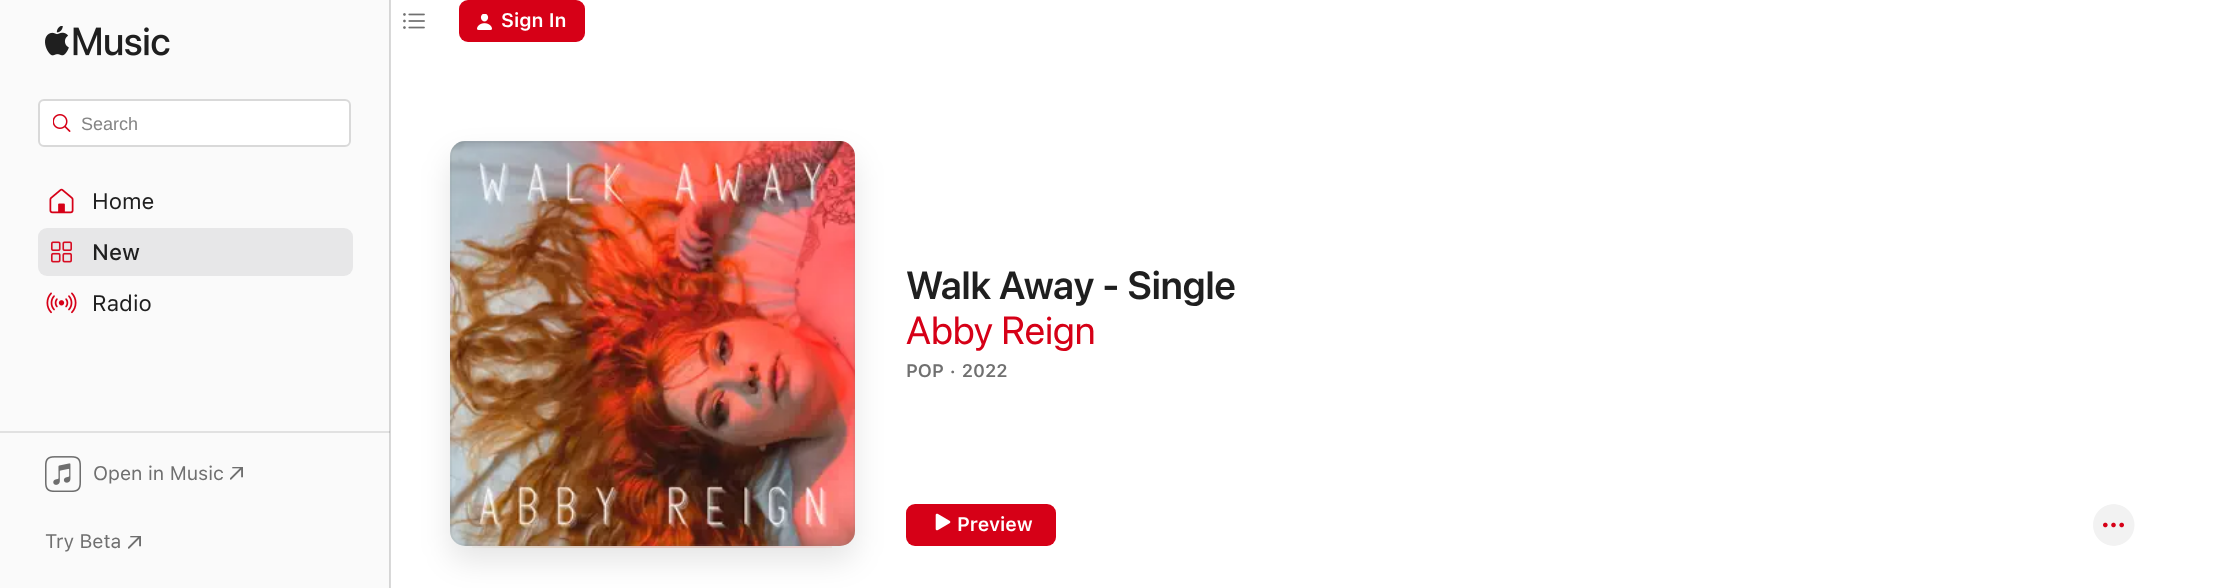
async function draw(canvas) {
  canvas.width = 2221
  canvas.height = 588
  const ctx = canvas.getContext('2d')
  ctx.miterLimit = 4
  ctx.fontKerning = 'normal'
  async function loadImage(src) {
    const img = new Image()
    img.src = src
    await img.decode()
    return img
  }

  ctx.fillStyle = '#fff'
  ctx.fillRect(0, 0, 2221, 588)
  ctx.fillStyle = '#d9d9d9'
  ctx.fillRect(390, 0, 1, 588)
  ctx.drawImage(await loadImage('image0.png'), 403, 13, 22, 16)
  ctx.fillStyle = '#d60017'
  ctx.beginPath()
  ctx.roundRect(459, 0, 126, 42, 9)
  ctx.fill()
  ctx.drawImage(await loadImage('image1.png'), 477, 14, 15, 16)
  ctx.font = '600 19.5px SF'
  ctx.fillStyle = '#fff'
  ctx.fillText('Sign In', 501, 27)
  ctx.fillStyle = '#fafafa'
  ctx.fillRect(0, 0, 389, 588)
  ctx.fillStyle = '#e1e1e1'
  ctx.fillRect(0, 431, 390, 2)
  ctx.fillStyle = '#d5d5d5'
  ctx.fillRect(389, 0, 1, 588)
  ctx.fillStyle = '#c0c0c0'
  ctx.fillRect(389, 431, 1, 2)
  ctx.drawImage(await loadImage('image2.png'), 45, 26, 125, 30)
  ctx.fillStyle = '#fff'
  ctx.beginPath()
  ctx.roundRect(39, 100, 311, 46, 5)
  ctx.fill()
  ctx.strokeStyle = '#d9d9d9'
  ctx.lineWidth = 2
  ctx.stroke()
  ctx.drawImage(await loadImage('image3.png'), 53, 114, 18, 18)
  ctx.font = '18px Liberation Sans'
  ctx.fillStyle = '#858585'
  ctx.fillText('Search', 81, 130)
  ctx.drawImage(await loadImage('image4.png'), 49, 188, 25, 26)
  ctx.font = '22.5px "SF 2"'
  ctx.fillStyle = '#1f1f1f'
  ctx.fillText('Home', 92, 209)
  ctx.fillStyle = '#e7e7e8'
  ctx.beginPath()
  ctx.roundRect(38, 228, 315, 48, 9)
  ctx.fill()
  ctx.drawImage(await loadImage('image5.png'), 51, 241, 21, 22)
  ctx.font = '500 22.5px SF'
  ctx.fillStyle = '#1f1f1f'
  ctx.fillText('New', 92, 260)
  ctx.drawImage(await loadImage('image6.png'), 46, 292, 31, 22)
  ctx.font = '22.5px "SF 2"'
  ctx.fillText('Radio', 92, 311)
  ctx.drawImage(await loadImage('image7.png'), 45, 456, 36, 36)
  ctx.font = '19.5px "SF 2"'
  ctx.fillStyle = '#707070'
  ctx.fillText('Open in Music', 93, 480)
  ctx.drawImage(await loadImage('image8.png'), 230, 467, 13, 13)
  ctx.fillText('Try Beta', 45, 548)
  ctx.drawImage(await loadImage('image8.png'), 128, 536, 13, 13)
  ctx.fillStyle = '#0000001a'
  ctx.filter = 'blur(15px)'
  ctx.beginPath()
  ctx.roundRect(450, 156, 405, 405, 15)
  ctx.fill()
  ctx.filter = 'none'
  ctx.drawImage(await loadImage('image9.png'), 450, 141, 405, 405)
  ctx.beginPath()
  ctx.roundRect(451, 142, 403, 403, 14)
  ctx.strokeStyle = '#8080801a'
  ctx.stroke()
  ctx.drawImage(await loadImage('image10.png'), 472, 546, 360, 2)
  ctx.font = '600 39px "SF 2"'
  ctx.fillStyle = '#1f1f1f'
  ctx.fillText('Walk Away - Single', 906, 299)
  ctx.font = '39px SF'
  ctx.fillStyle = '#d60017'
  ctx.fillText('Abby Reign', 906, 344)
  ctx.font = '600 18px SF'
  ctx.fillStyle = '#707070'
  ctx.fillText('POP · 2022', 906, 377)
  ctx.fillStyle = '#d60017'
  ctx.beginPath()
  ctx.roundRect(906, 504, 150, 42, 9)
  ctx.fill()
  ctx.drawImage(await loadImage('image11.png'), 935, 513, 16, 18)
  ctx.font = '600 19.5px SF'
  ctx.fillStyle = '#fff'
  ctx.fillText('Preview', 957, 531)
  ctx.drawImage(await loadImage('image12.png'), 2093, 504, 42, 42)
}

draw(document.querySelector('canvas'))
